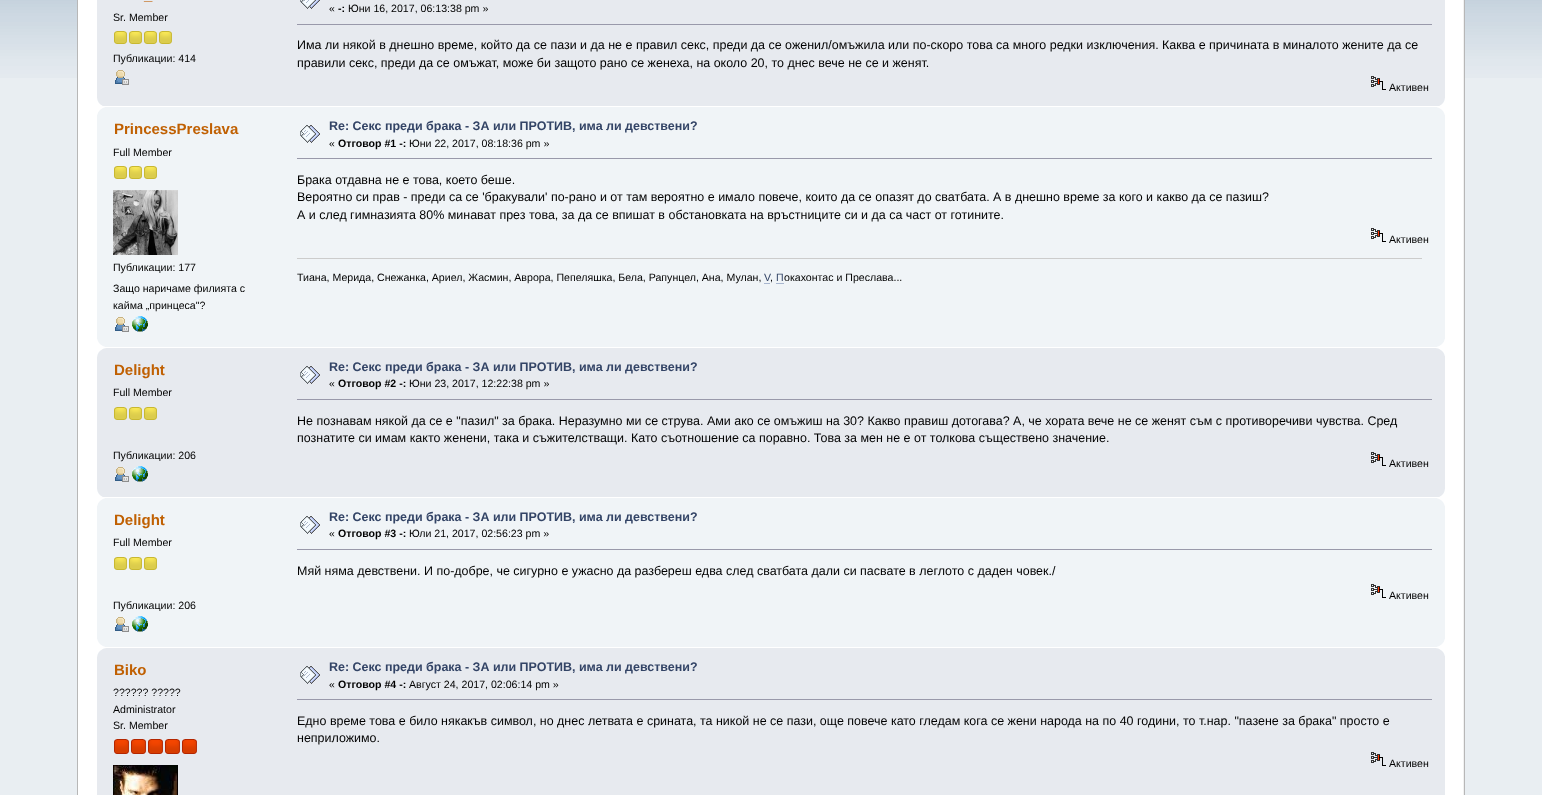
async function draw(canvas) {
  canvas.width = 1542
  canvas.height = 795
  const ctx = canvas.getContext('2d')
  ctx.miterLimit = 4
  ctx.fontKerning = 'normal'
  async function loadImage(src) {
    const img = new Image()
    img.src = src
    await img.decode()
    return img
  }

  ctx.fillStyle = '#e9eef2'
  ctx.fillRect(0, 0, 1542, 795)
  ctx.drawImage(await loadImage('image0.png'), 0, 0, 1542, 78)
  ctx.fillStyle = '#fff'
  ctx.fillRect(78, 0, 1385, 795)
  ctx.fillStyle = '#b7b7b7'
  ctx.fillRect(77, 0, 1, 795)
  ctx.drawImage(await loadImage('image1.png'), 1463, 0, 2, 795)
  ctx.fillStyle = '#e7eaef'
  ctx.fillRect(97, 0, 1348, 106)
  ctx.font = 'bold 15px Liberation Sans'
  ctx.fillStyle = '#c06002'
  ctx.fillText('_', 144, 0)
  ctx.font = '10.6px Liberation Sans'
  ctx.fillStyle = '#000'
  ctx.fillText('Sr. Member', 113, 21)
  ctx.drawImage(await loadImage('image2.png'), 114, 31, 13, 13)
  ctx.drawImage(await loadImage('image2.png'), 129, 31, 13, 13)
  ctx.drawImage(await loadImage('image2.png'), 144, 31, 13, 13)
  ctx.drawImage(await loadImage('image2.png'), 159, 31, 13, 13)
  ctx.fillText('Публикации: 414', 113, 62)
  ctx.drawImage(await loadImage('image3.png'), 115, 70, 14, 15)
  ctx.drawImage(await loadImage('image4.png'), 300, 0, 20, 9)
  ctx.fillText('«', 329, 12)
  ctx.font = 'bold 10.6px Liberation Sans'
  ctx.fillText('-:', 338, 12)
  ctx.font = '10.6px Liberation Sans'
  ctx.fillText('Юни 16, 2017, 06:13:38 pm »', 348, 12)
  ctx.fillStyle = '#99a'
  ctx.fillRect(297, 24, 1135, 1)
  ctx.font = '12.48px Liberation Sans'
  ctx.fillStyle = '#000'
  ctx.fillText('Има ли някой в днешно време, който да се пази и да не е правил секс, преди да се оженил/омъжила или по-скоро това са много редки изключения. Каква е причината в миналото жените да се', 297, 49)
  ctx.fillText('правили секс, преди да се омъжат, може би защото рано се женеха, на около 20, то днес вече не се и женят.', 297, 67)
  ctx.drawImage(await loadImage('image5.png'), 1371, 76, 15, 14)
  ctx.font = '10.6px Liberation Sans'
  ctx.fillText('Активен', 1389, 91)
  ctx.drawImage(await loadImage('image6.png'), 97, 98, 6, 8)
  ctx.drawImage(await loadImage('image7.png'), 1439, 98, 6, 8)
  ctx.fillStyle = '#f0f4f7'
  ctx.fillRect(97, 107, 1348, 240)
  ctx.drawImage(await loadImage('image8.png'), 97, 107, 8, 8)
  ctx.drawImage(await loadImage('image9.png'), 1437, 107, 8, 8)
  ctx.font = 'bold 15px Liberation Sans'
  ctx.fillStyle = '#c06002'
  ctx.fillText('PrincessPreslava', 114, 134)
  ctx.font = '10.6px Liberation Sans'
  ctx.fillStyle = '#000'
  ctx.fillText('Full Member', 113, 156)
  ctx.drawImage(await loadImage('image10.png'), 114, 166, 13, 13)
  ctx.drawImage(await loadImage('image10.png'), 129, 166, 13, 13)
  ctx.drawImage(await loadImage('image10.png'), 144, 166, 13, 13)
  ctx.drawImage(await loadImage('image11.png'), 113, 190, 65, 65)
  ctx.fillText('Публикации: 177', 113, 271)
  ctx.fillText('Защо наричаме филията с', 113, 292)
  ctx.fillText('кайма „принцеса"?', 113, 309)
  ctx.drawImage(await loadImage('image12.png'), 115, 317, 14, 15)
  ctx.drawImage(await loadImage('image13.png'), 132, 316, 16, 16)
  ctx.drawImage(await loadImage('image14.png'), 300, 125, 20, 18)
  ctx.font = 'bold 12.48px Liberation Sans'
  ctx.fillStyle = '#346'
  ctx.fillText('Re: Секс преди брака - ЗА или ПРОТИВ, има ли девствени?', 329, 130)
  ctx.font = '10.6px Liberation Sans'
  ctx.fillStyle = '#000'
  ctx.fillText('«', 329, 147)
  ctx.font = 'bold 10.6px Liberation Sans'
  ctx.fillText('Отговор #1 -:', 338, 147)
  ctx.font = '10.6px Liberation Sans'
  ctx.fillText('Юни 22, 2017, 08:18:36 pm »', 409, 147)
  ctx.fillStyle = '#99a'
  ctx.fillRect(297, 158, 1135, 1)
  ctx.font = '12.48px Liberation Sans'
  ctx.fillStyle = '#000'
  ctx.fillText('Брака отдавна не е това, което беше.', 297, 184)
  ctx.fillText('Вероятно си прав - преди са се \'бракували\' по-рано и от там вероятно е имало повече, които да се опазят до сватбата. А в днешно време за кого и какво да се пазиш?', 297, 201)
  ctx.fillText('А и след гимназията 80% минават през това, за да се впишат в обстановката на връстниците си и да са част от готините.', 297, 219)
  ctx.drawImage(await loadImage('image15.png'), 1371, 228, 15, 14)
  ctx.font = '10.6px Liberation Sans'
  ctx.fillText('Активен', 1389, 243)
  ctx.fillStyle = '#ccc'
  ctx.fillRect(297, 258, 1125, 1)
  ctx.fillStyle = '#000'
  ctx.fillText('Тиана, Мерида, Снежанка, Ариел, Жасмин, Аврора, Пепеляшка, Бела, Рапунцел, Ана, Мулан,', 297, 281)
  ctx.fillStyle = '#346'
  ctx.fillText('V', 764, 281)
  ctx.fillStyle = '#a8b6cf'
  ctx.fillRect(764, 283, 6, 1)
  ctx.fillStyle = '#346'
  ctx.fillText('П', 776, 281)
  ctx.fillStyle = '#a8b6cf'
  ctx.fillRect(776, 283, 8, 1)
  ctx.fillStyle = '#000'
  ctx.fillText('окахонтас и Преслава...', 784, 281)
  ctx.fillText(',', 770, 281)
  ctx.drawImage(await loadImage('image16.png'), 97, 339, 8, 8)
  ctx.drawImage(await loadImage('image17.png'), 1437, 339, 8, 8)
  ctx.fillStyle = '#e7eaef'
  ctx.fillRect(97, 348, 1348, 149)
  ctx.drawImage(await loadImage('image18.png'), 97, 348, 9, 9)
  ctx.drawImage(await loadImage('image19.png'), 1436, 348, 9, 8)
  ctx.font = 'bold 15px Liberation Sans'
  ctx.fillStyle = '#c06002'
  ctx.fillText('Delight', 114, 375)
  ctx.font = '10.6px Liberation Sans'
  ctx.fillStyle = '#000'
  ctx.fillText('Full Member', 113, 396)
  ctx.drawImage(await loadImage('image2.png'), 114, 407, 13, 13)
  ctx.drawImage(await loadImage('image2.png'), 129, 407, 13, 13)
  ctx.drawImage(await loadImage('image2.png'), 144, 407, 13, 13)
  ctx.fillText('Публикации: 206', 113, 459)
  ctx.drawImage(await loadImage('image3.png'), 115, 467, 14, 15)
  ctx.drawImage(await loadImage('image20.png'), 132, 466, 16, 16)
  ctx.drawImage(await loadImage('image21.png'), 300, 366, 20, 18)
  ctx.font = 'bold 12.48px Liberation Sans'
  ctx.fillStyle = '#346'
  ctx.fillText('Re: Секс преди брака - ЗА или ПРОТИВ, има ли девствени?', 329, 371)
  ctx.font = '10.6px Liberation Sans'
  ctx.fillStyle = '#000'
  ctx.fillText('«', 329, 387)
  ctx.font = 'bold 10.6px Liberation Sans'
  ctx.fillText('Отговор #2 -:', 338, 387)
  ctx.font = '10.6px Liberation Sans'
  ctx.fillText('Юни 23, 2017, 12:22:38 pm »', 409, 387)
  ctx.fillStyle = '#99a'
  ctx.fillRect(297, 399, 1135, 1)
  ctx.font = '12.48px Liberation Sans'
  ctx.fillStyle = '#000'
  ctx.fillText('Не познавам някой да се е "пазил" за брака. Неразумно ми се струва. Ами ако се омъжиш на 30? Какво правиш дотогава? А, че хората вече не се женят съм с противоречиви чувства. Сред', 297, 425)
  ctx.fillText('познатите си имам както женени, така и съжителстващи. Като съотношение са поравно. Това за мен не е от толкова съществено значение.', 297, 442)
  ctx.drawImage(await loadImage('image5.png'), 1371, 452, 15, 14)
  ctx.font = '10.6px Liberation Sans'
  ctx.fillText('Активен', 1389, 467)
  ctx.drawImage(await loadImage('image6.png'), 97, 489, 6, 8)
  ctx.drawImage(await loadImage('image7.png'), 1439, 489, 6, 8)
  ctx.fillStyle = '#f0f4f7'
  ctx.fillRect(97, 498, 1348, 149)
  ctx.drawImage(await loadImage('image8.png'), 97, 498, 8, 8)
  ctx.drawImage(await loadImage('image9.png'), 1437, 498, 8, 8)
  ctx.font = 'bold 15px Liberation Sans'
  ctx.fillStyle = '#c06002'
  ctx.fillText('Delight', 114, 525)
  ctx.font = '10.6px Liberation Sans'
  ctx.fillStyle = '#000'
  ctx.fillText('Full Member', 113, 546)
  ctx.drawImage(await loadImage('image10.png'), 114, 557, 13, 13)
  ctx.drawImage(await loadImage('image10.png'), 129, 557, 13, 13)
  ctx.drawImage(await loadImage('image10.png'), 144, 557, 13, 13)
  ctx.fillText('Публикации: 206', 113, 609)
  ctx.drawImage(await loadImage('image12.png'), 115, 617, 14, 15)
  ctx.drawImage(await loadImage('image13.png'), 132, 616, 16, 16)
  ctx.drawImage(await loadImage('image14.png'), 300, 516, 20, 18)
  ctx.font = 'bold 12.48px Liberation Sans'
  ctx.fillStyle = '#346'
  ctx.fillText('Re: Секс преди брака - ЗА или ПРОТИВ, има ли девствени?', 329, 521)
  ctx.font = '10.6px Liberation Sans'
  ctx.fillStyle = '#000'
  ctx.fillText('«', 329, 537)
  ctx.font = 'bold 10.6px Liberation Sans'
  ctx.fillText('Отговор #3 -:', 338, 537)
  ctx.font = '10.6px Liberation Sans'
  ctx.fillText('Юли 21, 2017, 02:56:23 pm »', 409, 537)
  ctx.fillStyle = '#99a'
  ctx.fillRect(297, 549, 1135, 1)
  ctx.font = '12.48px Liberation Sans'
  ctx.fillStyle = '#000'
  ctx.fillText('Мяй няма девствени. И по-добре, че сигурно е ужасно да разбереш едва след сватбата дали си пасвате в леглото с даден човек./', 297, 575)
  ctx.drawImage(await loadImage('image15.png'), 1371, 584, 15, 14)
  ctx.font = '10.6px Liberation Sans'
  ctx.fillText('Активен', 1389, 599)
  ctx.drawImage(await loadImage('image16.png'), 97, 639, 8, 8)
  ctx.drawImage(await loadImage('image17.png'), 1437, 639, 8, 8)
  ctx.fillStyle = '#e7eaef'
  ctx.fillRect(97, 648, 1348, 147)
  ctx.drawImage(await loadImage('image18.png'), 97, 648, 9, 9)
  ctx.drawImage(await loadImage('image19.png'), 1436, 648, 9, 8)
  ctx.font = 'bold 15px Liberation Sans'
  ctx.fillStyle = '#c06002'
  ctx.fillText('Biko', 114, 675)
  ctx.font = '10.6px Liberation Sans'
  ctx.fillStyle = '#000'
  ctx.fillText('?????? ?????', 113, 696)
  ctx.fillText('Administrator', 113, 713)
  ctx.fillText('Sr. Member', 113, 729)
  ctx.drawImage(await loadImage('image22.png'), 114, 739, 15, 15)
  ctx.drawImage(await loadImage('image22.png'), 131, 739, 15, 15)
  ctx.drawImage(await loadImage('image22.png'), 148, 739, 15, 15)
  ctx.drawImage(await loadImage('image22.png'), 165, 739, 15, 15)
  ctx.drawImage(await loadImage('image22.png'), 182, 739, 15, 15)
  ctx.drawImage(await loadImage('image23.png'), 113, 765, 65, 30)
  ctx.drawImage(await loadImage('image21.png'), 300, 666, 20, 18)
  ctx.font = 'bold 12.48px Liberation Sans'
  ctx.fillStyle = '#346'
  ctx.fillText('Re: Секс преди брака - ЗА или ПРОТИВ, има ли девствени?', 329, 671)
  ctx.font = '10.6px Liberation Sans'
  ctx.fillStyle = '#000'
  ctx.fillText('«', 329, 688)
  ctx.font = 'bold 10.6px Liberation Sans'
  ctx.fillText('Отговор #4 -:', 338, 688)
  ctx.font = '10.6px Liberation Sans'
  ctx.fillText('Август 24, 2017, 02:06:14 pm »', 409, 688)
  ctx.fillStyle = '#99a'
  ctx.fillRect(297, 699, 1135, 1)
  ctx.font = '12.48px Liberation Sans'
  ctx.fillStyle = '#000'
  ctx.fillText('Едно време това е било някакъв символ, но днес летвата е срината, та никой не се пази, още повече като гледам кога се жени народа на по 40 години, то т.нар. "пазене за брака" просто е', 297, 725)
  ctx.fillText('неприложимо.', 297, 742)
  ctx.drawImage(await loadImage('image5.png'), 1371, 752, 15, 14)
  ctx.font = '10.6px Liberation Sans'
  ctx.fillText('Активен', 1389, 767)
}

draw(document.querySelector('canvas'))
